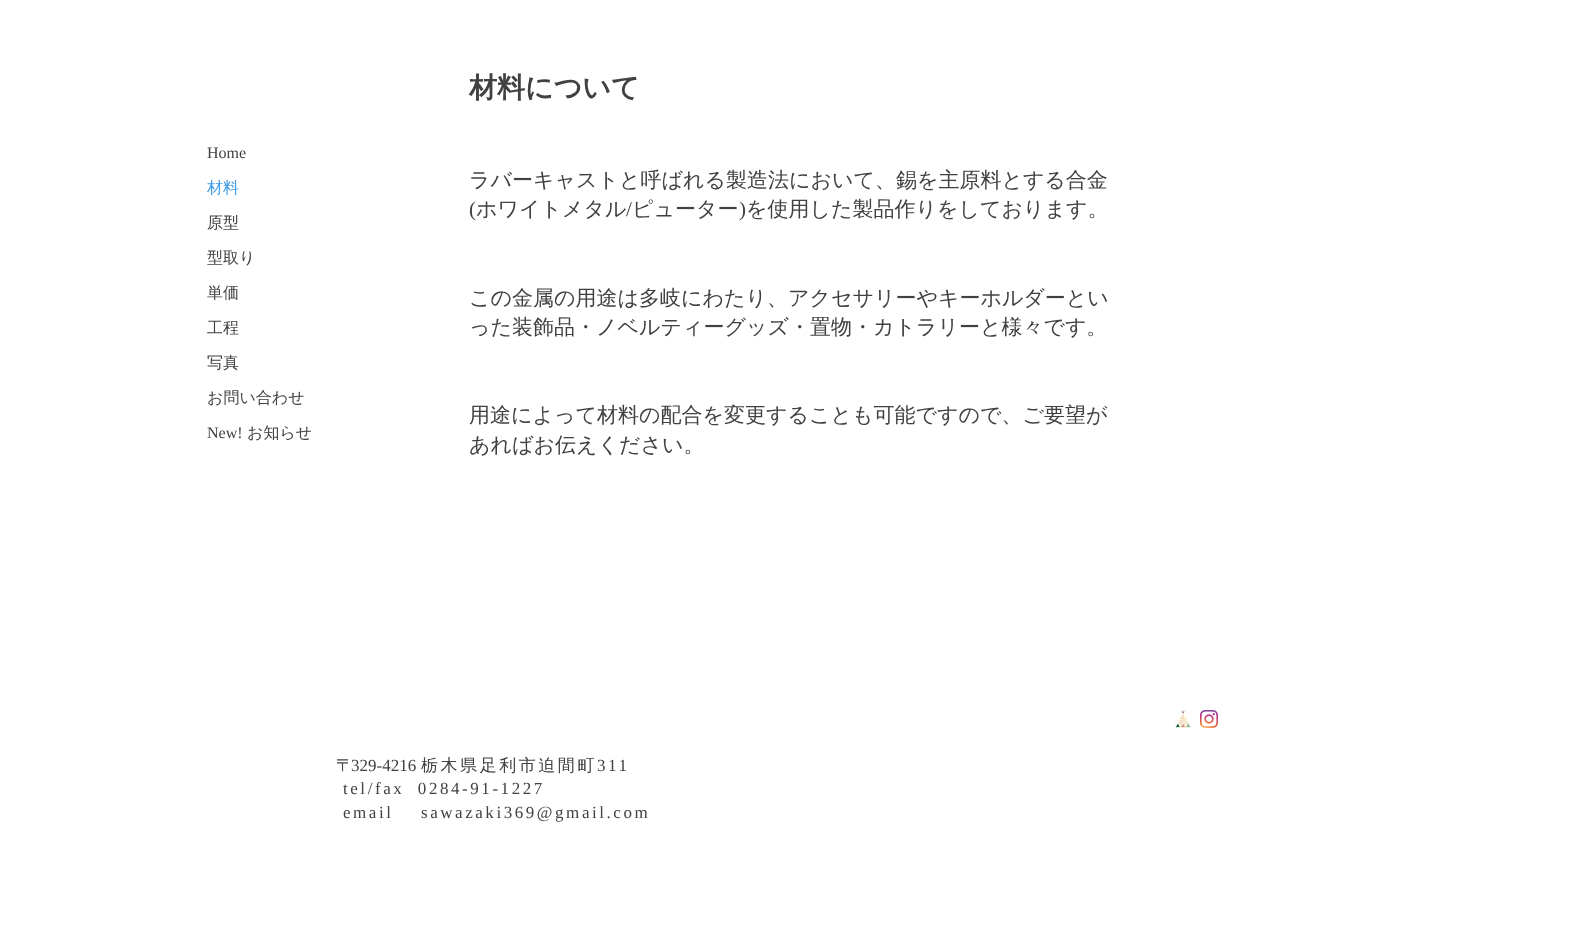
async function draw(canvas) {
  canvas.width = 1588
  canvas.height = 951
  const ctx = canvas.getContext('2d')
  ctx.miterLimit = 4
  ctx.fontKerning = 'normal'
  async function loadImage(src) {
    const img = new Image()
    img.src = src
    await img.decode()
    return img
  }

  ctx.fillStyle = '#fff'
  ctx.fillRect(0, 0, 1588, 951)
  ctx.font = '16px Liberation Serif'
  ctx.fillStyle = '#414141'
  ctx.fillText('Home', 207, 158)
  ctx.font = '500 16px WenQuanYi Zen Hei'
  ctx.fillStyle = '#3d9be9'
  ctx.fillText('材料', 207, 193)
  ctx.fillStyle = '#414141'
  ctx.fillText('原型', 207, 228)
  ctx.fillText('型取り', 207, 263)
  ctx.fillText('単価', 207, 298)
  ctx.fillText('工程', 207, 333)
  ctx.fillText('写真', 207, 368)
  ctx.fillText('お問い合わせ', 207, 403)
  ctx.font = '16px Liberation Serif'
  ctx.fillText('New!', 207, 438)
  ctx.font = '500 16px WenQuanYi Zen Hei'
  ctx.fillText('お知らせ', 247, 438)
  ctx.font = 'bold 28px WenQuanYi Zen Hei'
  ctx.fillText('材料について', 469, 97)
  ctx.font = '500 21px WenQuanYi Zen Hei'
  ctx.fillText('ラバーキャストと呼ばれる製造法において、錫を主原料とする合金', 469, 187)
  ctx.font = '21px Liberation Serif'
  ctx.fillText('(', 469, 216)
  ctx.font = '500 21px WenQuanYi Zen Hei'
  ctx.fillText('ホワイトメタル', 476, 216)
  ctx.font = '21px Liberation Serif'
  ctx.fillText('/', 626, 216)
  ctx.font = '500 21px WenQuanYi Zen Hei'
  ctx.fillText('ピューター', 632, 216)
  ctx.font = '21px Liberation Serif'
  ctx.fillText(')', 739, 216)
  ctx.font = '500 21px WenQuanYi Zen Hei'
  ctx.fillText('を使用した製品作りをしております。', 746, 216)
  ctx.fillText('この金属の用途は多岐にわたり、アクセサリーやキーホルダーとい', 469, 305)
  ctx.fillText('った装飾品・ノベルティーグッズ・置物・カトラリーと様々です。', 469, 334)
  ctx.fillText('用途によって材料の配合を変更することも可能ですので、ご要望が', 469, 422)
  ctx.fillText('あればお伝えください。', 469, 452)
  ctx.drawImage(await loadImage('image0.png'), 1174, 710, 17, 18)
  ctx.drawImage(await loadImage('image1.png'), 1200, 710, 18, 18)
  ctx.letterSpacing = '-2px'
  ctx.font = '500 17px WenQuanYi Zen Hei'
  ctx.fillText('〒', 336, 771)
  ctx.letterSpacing = '0px'
  ctx.font = '17px Liberation Serif'
  ctx.fillText('329-4216', 351, 771)
  ctx.letterSpacing = '2.55px'
  ctx.font = '500 17px WenQuanYi Zen Hei'
  ctx.fillText('栃木県足利市迫間町', 421, 771)
  ctx.font = '17px Liberation Serif'
  ctx.fillText('311', 597, 771)
  ctx.fillText('tel/fax  0284-91-1227', 343, 794)
  ctx.fillText('email', 343, 818)
  ctx.fillText('sawazaki369@gmail.com', 421, 818)
}

draw(document.querySelector('canvas'))
